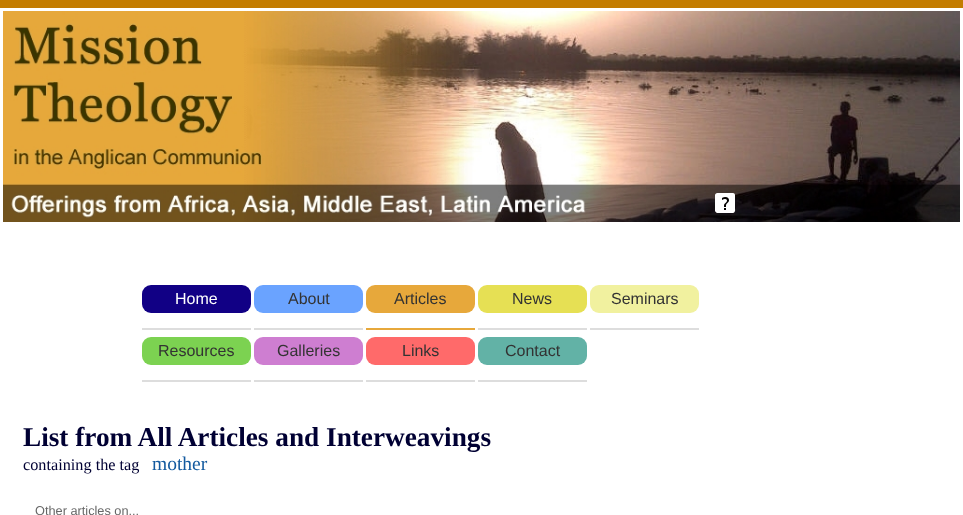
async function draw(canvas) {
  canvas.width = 963
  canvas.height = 515
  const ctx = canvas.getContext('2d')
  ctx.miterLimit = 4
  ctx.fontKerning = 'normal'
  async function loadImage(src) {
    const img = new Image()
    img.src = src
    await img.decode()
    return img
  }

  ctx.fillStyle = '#fff'
  ctx.fillRect(0, 0, 963, 515)
  ctx.drawImage(await loadImage('image0.png'), 0, 0, 963, 8)
  ctx.drawImage(await loadImage('image1.png'), 3, 11, 957, 211)
  ctx.drawImage(await loadImage('image2.png'), 715, 193, 20, 20)
  ctx.fillStyle = '#ddd'
  ctx.fillRect(142, 328, 109, 2)
  ctx.fillStyle = '#110085'
  ctx.beginPath()
  ctx.roundRect(142, 285, 109, 28, 9)
  ctx.fill()
  ctx.font = '16px Liberation Sans'
  ctx.fillStyle = '#fff'
  ctx.fillText('Home', 175, 304)
  ctx.fillStyle = '#ddd'
  ctx.fillRect(254, 328, 109, 2)
  ctx.fillStyle = '#6aa3ff'
  ctx.beginPath()
  ctx.roundRect(254, 285, 109, 28, 9)
  ctx.fill()
  ctx.fillStyle = '#333'
  ctx.fillText('About', 288, 304)
  ctx.fillStyle = '#e7a83b'
  ctx.fillRect(366, 328, 109, 2)
  ctx.beginPath()
  ctx.roundRect(366, 285, 109, 28, 9)
  ctx.fill()
  ctx.fillStyle = '#333'
  ctx.fillText('Articles', 394, 304)
  ctx.fillStyle = '#ddd'
  ctx.fillRect(478, 328, 109, 2)
  ctx.fillStyle = '#e6e054'
  ctx.beginPath()
  ctx.roundRect(478, 285, 109, 28, 9)
  ctx.fill()
  ctx.fillStyle = '#333'
  ctx.fillText('News', 512, 304)
  ctx.fillStyle = '#ddd'
  ctx.fillRect(590, 328, 109, 2)
  ctx.fillStyle = '#f1f19f'
  ctx.beginPath()
  ctx.roundRect(590, 285, 109, 28, 9)
  ctx.fill()
  ctx.fillStyle = '#333'
  ctx.fillText('Seminars', 611, 304)
  ctx.fillStyle = '#ddd'
  ctx.fillRect(142, 380, 109, 2)
  ctx.fillStyle = '#7cd251'
  ctx.beginPath()
  ctx.roundRect(142, 337, 109, 28, 9)
  ctx.fill()
  ctx.fillStyle = '#333'
  ctx.fillText('Resources', 158, 356)
  ctx.fillStyle = '#ddd'
  ctx.fillRect(254, 380, 109, 2)
  ctx.fillStyle = '#ce7ed1'
  ctx.beginPath()
  ctx.roundRect(254, 337, 109, 28, 9)
  ctx.fill()
  ctx.fillStyle = '#333'
  ctx.fillText('Galleries', 277, 356)
  ctx.fillStyle = '#ddd'
  ctx.fillRect(366, 380, 109, 2)
  ctx.fillStyle = '#ff6a6a'
  ctx.beginPath()
  ctx.roundRect(366, 337, 109, 28, 9)
  ctx.fill()
  ctx.fillStyle = '#333'
  ctx.fillText('Links', 402, 356)
  ctx.fillStyle = '#ddd'
  ctx.fillRect(478, 380, 109, 2)
  ctx.fillStyle = '#62b2a6'
  ctx.beginPath()
  ctx.roundRect(478, 337, 109, 28, 9)
  ctx.fill()
  ctx.fillStyle = '#333'
  ctx.fillText('Contact', 505, 356)
  ctx.font = 'bold 27.25px Liberation Serif'
  ctx.fillStyle = '#003'
  ctx.fillText('List from All Articles and Interweavings', 23, 446)
  ctx.font = '16.25px Liberation Serif'
  ctx.fillText('containing the tag', 23, 470)
  ctx.font = '19.5px Liberation Serif'
  ctx.fillStyle = '#135a9f'
  ctx.fillText('mother', 152, 470)
  ctx.font = '12.75px Liberation Sans'
  ctx.fillStyle = '#666'
  ctx.fillText('Other articles on...', 35, 515)
}

draw(document.querySelector('canvas'))
